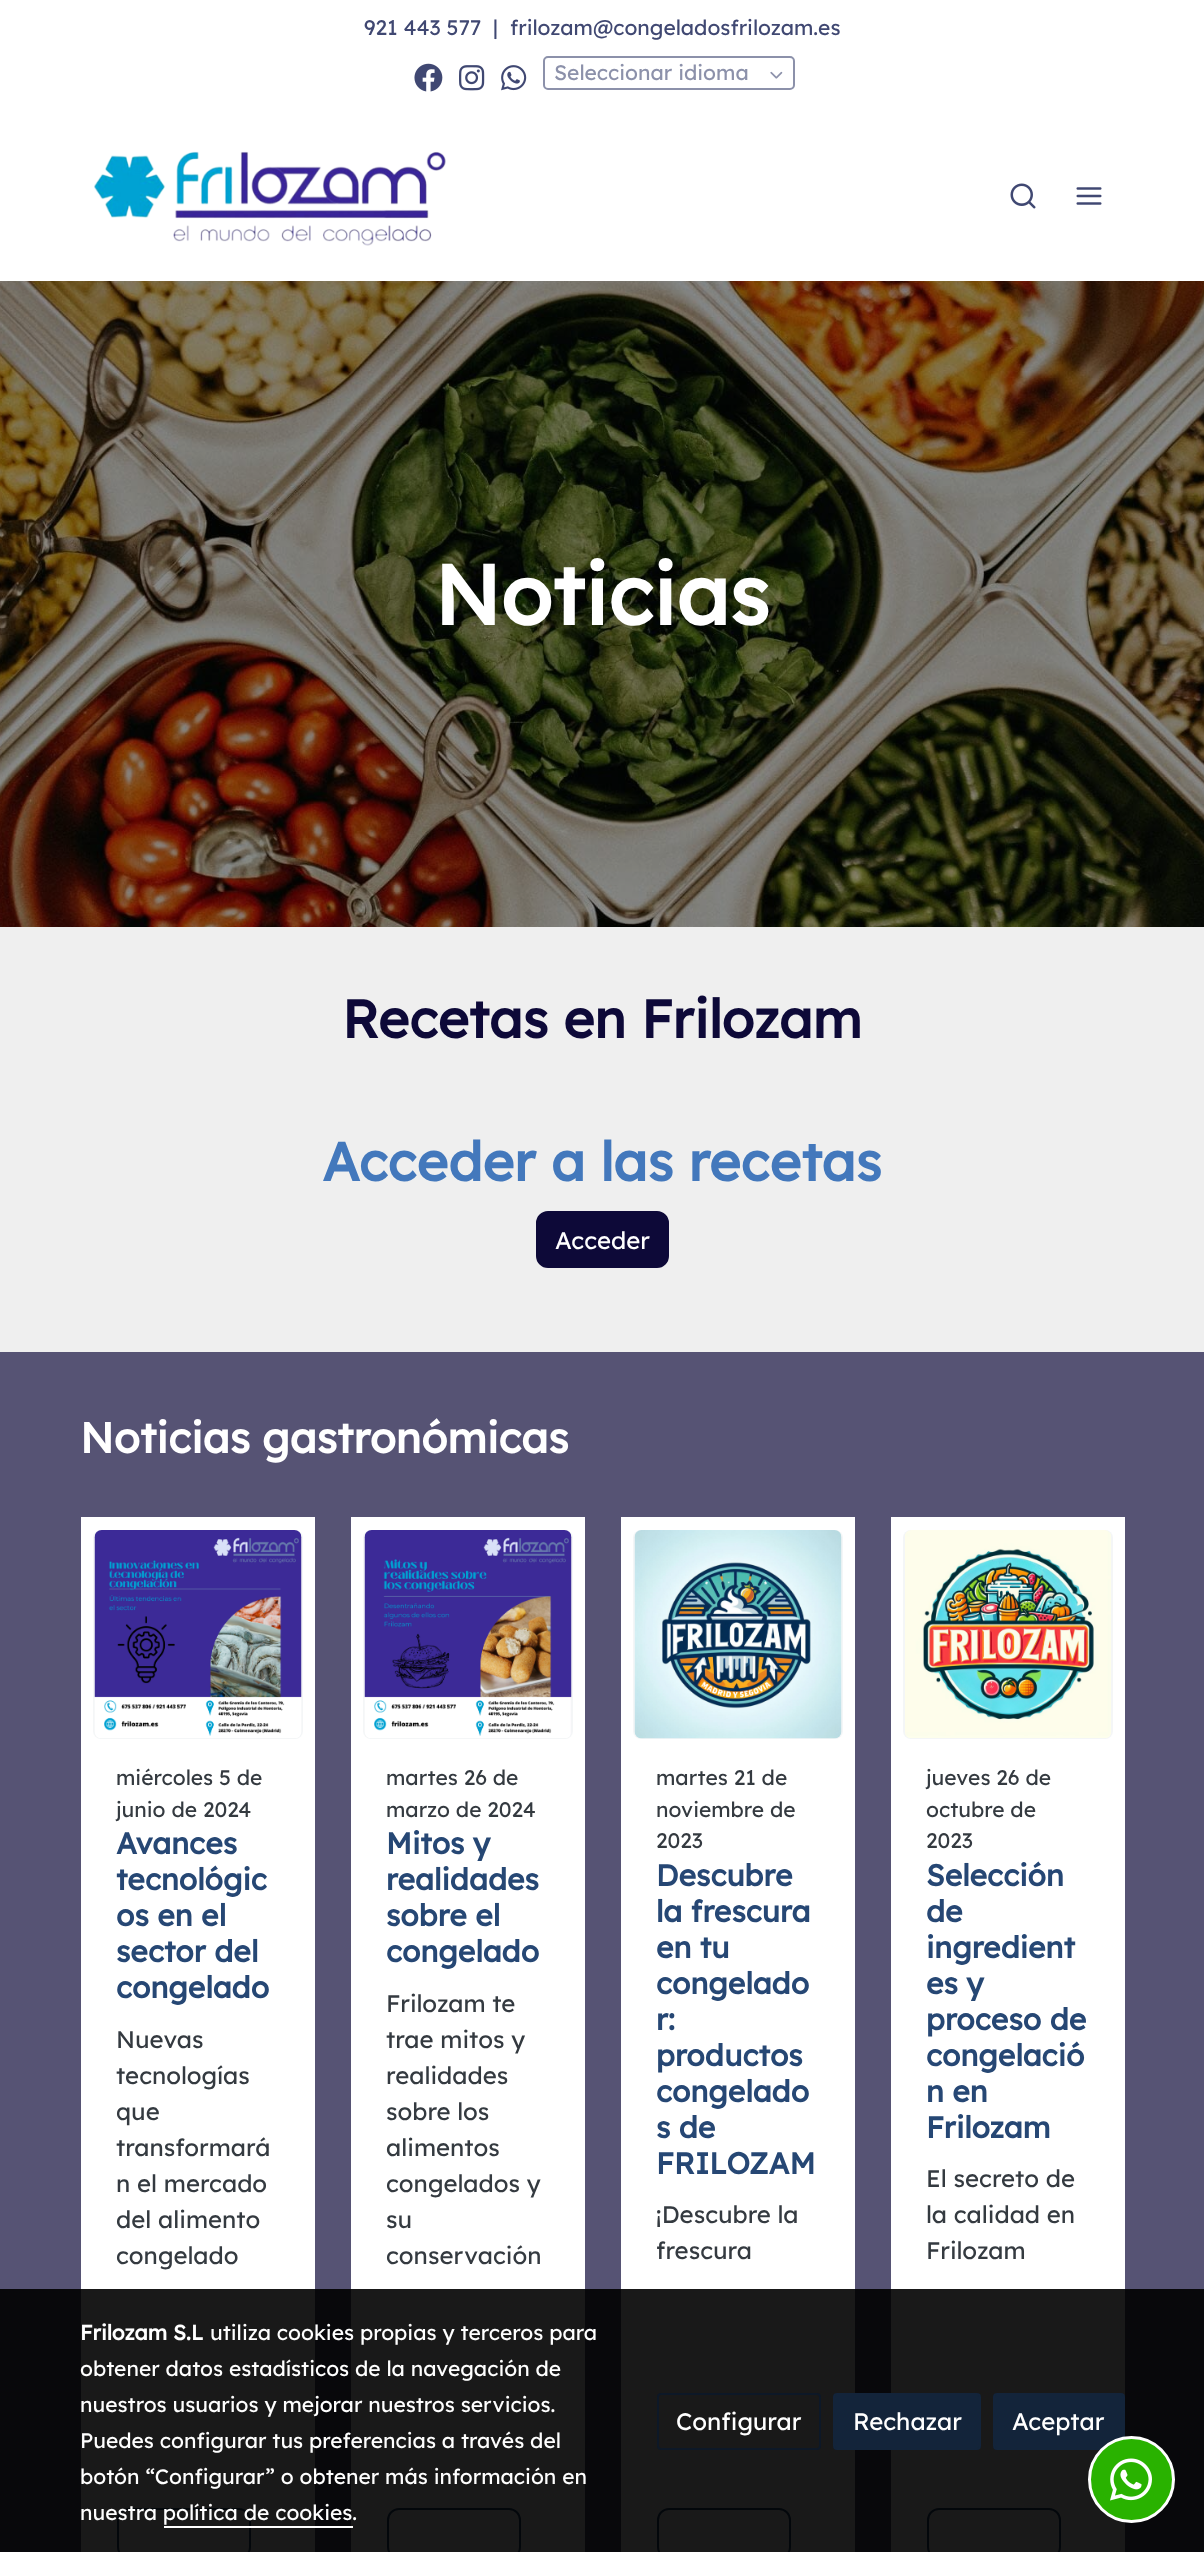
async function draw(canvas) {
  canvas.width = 1204
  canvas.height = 2552
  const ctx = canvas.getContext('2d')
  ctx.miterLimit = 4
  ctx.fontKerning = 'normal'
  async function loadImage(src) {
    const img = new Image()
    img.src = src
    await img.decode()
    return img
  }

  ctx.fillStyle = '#fff'
  ctx.fillRect(0, 0, 1204, 2552)
  ctx.font = '21px Lexend Deca'
  ctx.fillStyle = '#404872'
  ctx.fillText('921 443 577', 364, 35)
  ctx.fillText('|', 493, 35)
  ctx.fillText('frilozam@congeladosfrilozam.es', 510, 35)
  ctx.drawImage(await loadImage('image0.png'), 414, 63, 29, 29)
  ctx.drawImage(await loadImage('image1.png'), 459, 65, 26, 26)
  ctx.drawImage(await loadImage('image2.png'), 501, 65, 26, 26)
  ctx.beginPath()
  ctx.roundRect(544, 57, 250, 32, 4)
  ctx.strokeStyle = '#8c91aa'
  ctx.lineWidth = 2
  ctx.stroke()
  ctx.fillStyle = '#8c91aa'
  ctx.fillText('Seleccionar idioma', 554, 80)
  ctx.drawImage(await loadImage('image3.png'), 770, 71, 13, 8)
  ctx.drawImage(await loadImage('image4.png'), 94, 151, 352, 95)
  ctx.drawImage(await loadImage('image5.png'), 1010, 183, 26, 26)
  ctx.drawImage(await loadImage('image6.png'), 1076, 187, 26, 18)
  ctx.drawImage(await loadImage('image7.png'), 0, 281, 1204, 646)
  ctx.font = 'bold 84px Lexend Deca'
  ctx.fillStyle = '#fff'
  ctx.fillText('Noticias', 434, 625)
  ctx.fillStyle = '#efefef'
  ctx.fillRect(0, 927, 1204, 425)
  ctx.font = 'bold 53.25px Lexend Deca'
  ctx.fillStyle = '#0d0938'
  ctx.fillText('Recetas en Frilozam', 342, 1038)
  ctx.font = 'bold 54px Lexend Deca'
  ctx.fillStyle = '#4378bc'
  ctx.fillText('Acceder a las recetas', 322, 1181)
  ctx.fillStyle = '#0d0938'
  ctx.beginPath()
  ctx.roundRect(537, 1212, 131, 55, 11)
  ctx.fill()
  ctx.strokeStyle = '#0d0938'
  ctx.stroke()
  ctx.font = '24px Lexend Deca'
  ctx.fillStyle = '#fff'
  ctx.fillText('Acceder', 555, 1249)
  ctx.fillStyle = '#565374'
  ctx.fillRect(0, 1352, 1204, 1200)
  ctx.font = 'bold 42.6px Lexend Deca'
  ctx.fillStyle = '#fff'
  ctx.fillText('Noticias gastronómicas', 80, 1453)
  ctx.fillRect(81, 1517, 234, 1035)
  ctx.fillStyle = '#f4f6f7'
  ctx.beginPath()
  ctx.roundRect(93, 1530, 210, 209, 8)
  ctx.fill()
  ctx.drawImage(await loadImage('image8.png'), 94, 1530, 208, 208)
  ctx.font = '21px Lexend Deca'
  ctx.fillStyle = '#343a40'
  ctx.fillText('miércoles 5 de', 116, 1785)
  ctx.fillText('junio de 2024', 116, 1817)
  ctx.font = 'bold 30px Lexend Deca'
  ctx.fillStyle = '#264774'
  ctx.fillText('Avances', 116, 1854)
  ctx.fillText('tecnológic', 116, 1890)
  ctx.fillText('os en el', 116, 1926)
  ctx.fillText('sector del', 116, 1962)
  ctx.fillText('congelado', 116, 1998)
  ctx.font = '24px Lexend Deca'
  ctx.fillStyle = '#343a40'
  ctx.fillText('Nuevas', 116, 2048)
  ctx.fillText('tecnologías', 116, 2084)
  ctx.fillText('que', 116, 2120)
  ctx.fillText('transformará', 116, 2156)
  ctx.fillText('n el mercado', 116, 2192)
  ctx.fillText('del alimento', 116, 2228)
  ctx.fillText('congelado', 116, 2264)
  ctx.beginPath()
  ctx.roundRect(118, 2509, 132, 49, 11)
  ctx.strokeStyle = '#264774'
  ctx.stroke()
  ctx.fillStyle = '#fff'
  ctx.fillRect(351, 1517, 234, 1035)
  ctx.fillStyle = '#f4f6f7'
  ctx.beginPath()
  ctx.roundRect(363, 1530, 210, 209, 8)
  ctx.fill()
  ctx.drawImage(await loadImage('image9.png'), 364, 1530, 208, 208)
  ctx.font = '21px Lexend Deca'
  ctx.fillStyle = '#343a40'
  ctx.fillText('martes 26 de', 386, 1785)
  ctx.fillText('marzo de 2024', 386, 1817)
  ctx.font = 'bold 30px Lexend Deca'
  ctx.fillStyle = '#264774'
  ctx.fillText('Mitos y', 386, 1854)
  ctx.fillText('realidades', 386, 1890)
  ctx.fillText('sobre el', 386, 1926)
  ctx.fillText('congelado', 386, 1962)
  ctx.font = '24px Lexend Deca'
  ctx.fillStyle = '#343a40'
  ctx.fillText('Frilozam te', 386, 2012)
  ctx.fillText('trae mitos y', 386, 2048)
  ctx.fillText('realidades', 386, 2084)
  ctx.fillText('sobre los', 386, 2120)
  ctx.fillText('alimentos', 386, 2156)
  ctx.fillText('congelados y', 386, 2192)
  ctx.fillText('su', 386, 2228)
  ctx.fillText('conservación', 386, 2264)
  ctx.beginPath()
  ctx.roundRect(388, 2509, 132, 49, 11)
  ctx.stroke()
  ctx.fillStyle = '#fff'
  ctx.fillRect(621, 1517, 234, 1035)
  ctx.fillStyle = '#f4f6f7'
  ctx.beginPath()
  ctx.roundRect(633, 1530, 210, 209, 8)
  ctx.fill()
  ctx.drawImage(await loadImage('image10.png'), 634, 1530, 208, 209)
  ctx.font = '21px Lexend Deca'
  ctx.fillStyle = '#343a40'
  ctx.fillText('martes 21 de', 656, 1785)
  ctx.fillText('noviembre de', 656, 1817)
  ctx.fillText('2023', 656, 1848)
  ctx.font = 'bold 30px Lexend Deca'
  ctx.fillStyle = '#264774'
  ctx.fillText('Descubre', 656, 1886)
  ctx.fillText('la frescura', 656, 1922)
  ctx.fillText('en tu', 656, 1958)
  ctx.fillText('congelado', 656, 1994)
  ctx.fillText('r:', 656, 2030)
  ctx.fillText('productos', 656, 2066)
  ctx.fillText('congelado', 656, 2102)
  ctx.fillText('s de', 656, 2138)
  ctx.fillText('FRILOZAM', 656, 2174)
  ctx.font = '24px Lexend Deca'
  ctx.fillStyle = '#343a40'
  ctx.fillText('¡Descubre la', 656, 2223)
  ctx.fillText('frescura', 656, 2259)
  ctx.beginPath()
  ctx.roundRect(658, 2509, 132, 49, 11)
  ctx.stroke()
  ctx.fillStyle = '#fff'
  ctx.fillRect(891, 1517, 234, 1035)
  ctx.fillStyle = '#f4f6f7'
  ctx.beginPath()
  ctx.roundRect(903, 1530, 210, 209, 8)
  ctx.fill()
  ctx.drawImage(await loadImage('image11.png'), 905, 1530, 206, 208)
  ctx.font = '21px Lexend Deca'
  ctx.fillStyle = '#343a40'
  ctx.fillText('jueves 26 de', 926, 1785)
  ctx.fillText('octubre de', 926, 1817)
  ctx.fillText('2023', 926, 1848)
  ctx.font = 'bold 30px Lexend Deca'
  ctx.fillStyle = '#264774'
  ctx.fillText('Selección', 926, 1886)
  ctx.fillText('de', 926, 1922)
  ctx.fillText('ingredient', 926, 1958)
  ctx.fillText('es y', 926, 1994)
  ctx.fillText('proceso de', 926, 2030)
  ctx.fillText('congelació', 926, 2066)
  ctx.fillText('n en', 926, 2102)
  ctx.fillText('Frilozam', 926, 2138)
  ctx.font = '24px Lexend Deca'
  ctx.fillStyle = '#343a40'
  ctx.fillText('El secreto de', 926, 2187)
  ctx.fillText('la calidad en', 926, 2223)
  ctx.fillText('Frilozam', 926, 2259)
  ctx.beginPath()
  ctx.roundRect(928, 2509, 132, 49, 11)
  ctx.stroke()
  ctx.fillStyle = '#000000e6'
  ctx.fillRect(0, 2289, 1204, 263)
  ctx.font = 'bold 21px Lexend Deca'
  ctx.fillStyle = '#fff'
  ctx.fillText('Frilozam S.L', 80, 2340)
  ctx.font = '21px Lexend Deca'
  ctx.fillText('utiliza cookies propias y terceros para', 210, 2340)
  ctx.fillText('obtener datos estadísticos de la navegación de', 80, 2376)
  ctx.fillText('nuestros usuarios y mejorar nuestros servicios.', 80, 2412)
  ctx.fillText('Puedes configurar tus preferencias a través del', 80, 2448)
  ctx.fillText('botón “Configurar” o obtener más información en', 80, 2484)
  ctx.fillText('nuestra política de cookies.', 80, 2520)
  ctx.fillRect(164, 2526, 189, 2)
  ctx.beginPath()
  ctx.roundRect(658, 2394, 162, 55, 3)
  ctx.strokeStyle = '#0d1827'
  ctx.stroke()
  ctx.font = '24px Lexend Deca'
  ctx.fillText('Configurar', 676, 2430)
  ctx.fillStyle = '#13243a'
  ctx.beginPath()
  ctx.roundRect(834, 2394, 146, 55, 3)
  ctx.fill()
  ctx.strokeStyle = '#13243a'
  ctx.stroke()
  ctx.fillStyle = '#fff'
  ctx.fillText('Rechazar', 853, 2430)
  ctx.fillStyle = '#13243a'
  ctx.beginPath()
  ctx.roundRect(994, 2394, 130, 55, 3)
  ctx.fill()
  ctx.stroke()
  ctx.fillStyle = '#fff'
  ctx.fillText('Aceptar', 1012, 2430)
  ctx.fillStyle = '#29b200'
  ctx.beginPath()
  ctx.arc(1131.5, 2479.5, 42, 0, 2 * Math.PI)
  ctx.fill()
  ctx.strokeStyle = '#fff'
  ctx.lineWidth = 3
  ctx.stroke()
  ctx.drawImage(await loadImage('image12.png'), 1110, 2458, 42, 43)
}

draw(document.querySelector('canvas'))
